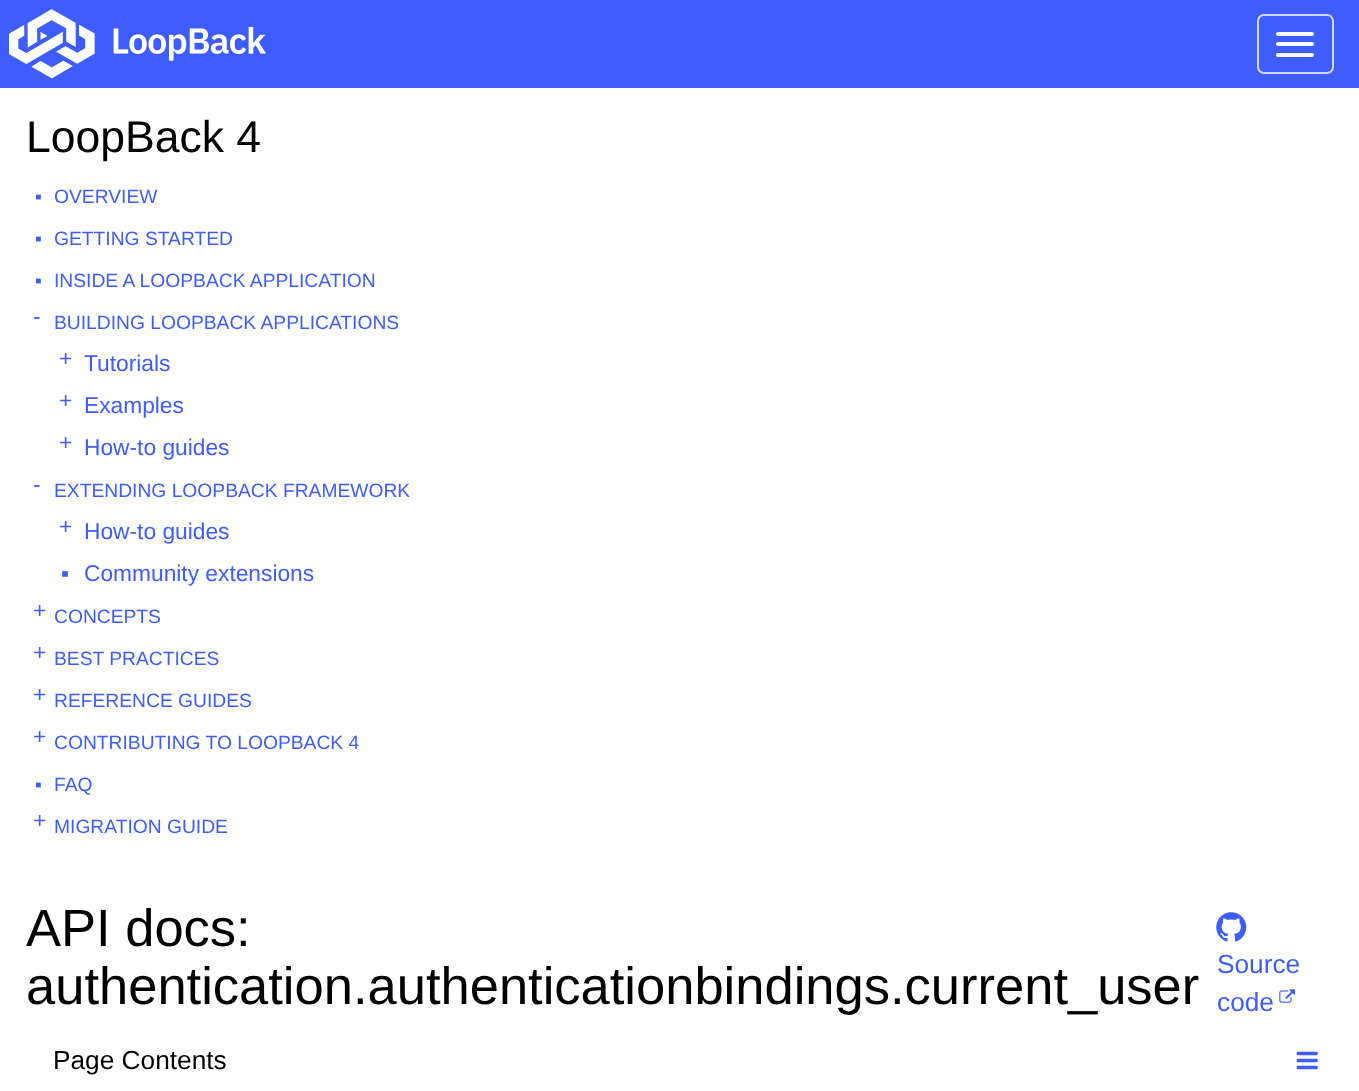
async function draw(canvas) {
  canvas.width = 1359
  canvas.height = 1091
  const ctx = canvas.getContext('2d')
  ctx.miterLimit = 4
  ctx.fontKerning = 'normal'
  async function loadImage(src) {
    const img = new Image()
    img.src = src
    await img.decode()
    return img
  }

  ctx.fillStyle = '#fff'
  ctx.fillRect(0, 0, 1359, 1091)
  ctx.fillStyle = '#3f5dff'
  ctx.fillRect(0, 0, 1359, 88)
  ctx.drawImage(await loadImage('image0.png'), 9, 9, 257, 70)
  ctx.beginPath()
  ctx.roundRect(1258, 15, 75, 58, 6)
  ctx.strokeStyle = '#d2d9ff'
  ctx.lineWidth = 2
  ctx.stroke()
  ctx.fillStyle = '#fff'
  ctx.beginPath()
  ctx.roundRect(1276, 32, 38, 4, 2)
  ctx.fill()
  ctx.beginPath()
  ctx.roundRect(1276, 42, 38, 4, 2)
  ctx.fill()
  ctx.beginPath()
  ctx.roundRect(1276, 53, 38, 4, 2)
  ctx.fill()
  ctx.font = '44.5px Liberation Sans'
  ctx.fillStyle = '#000'
  ctx.fillText('LoopBack 4', 26, 152)
  ctx.font = '19.25px Liberation Sans'
  ctx.fillStyle = '#3f5dff'
  ctx.fillText('▪', 35, 203)
  ctx.fillText('OVERVIEW', 54, 203)
  ctx.fillText('▪', 35, 245)
  ctx.fillText('GETTING STARTED', 54, 245)
  ctx.fillText('▪', 35, 287)
  ctx.fillText('INSIDE A LOOPBACK APPLICATION', 54, 287)
  ctx.font = '22.75px Liberation Sans'
  ctx.fillText('-', 33, 324)
  ctx.font = '19.25px Liberation Sans'
  ctx.fillText('BUILDING LOOPBACK APPLICATIONS', 54, 329)
  ctx.font = '22.75px Liberation Sans'
  ctx.fillText('+', 59, 366)
  ctx.fillText('Tutorials', 84, 371)
  ctx.fillText('+', 59, 408)
  ctx.fillText('Examples', 84, 413)
  ctx.fillText('+', 59, 450)
  ctx.fillText('How-to guides', 84, 455)
  ctx.fillText('-', 33, 492)
  ctx.font = '19.25px Liberation Sans'
  ctx.fillText('EXTENDING LOOPBACK FRAMEWORK', 54, 497)
  ctx.font = '22.75px Liberation Sans'
  ctx.fillText('+', 59, 534)
  ctx.fillText('How-to guides', 84, 539)
  ctx.fillText('▪', 61, 581)
  ctx.fillText('Community extensions', 84, 581)
  ctx.fillText('+', 33, 618)
  ctx.font = '19.25px Liberation Sans'
  ctx.fillText('CONCEPTS', 54, 623)
  ctx.font = '22.75px Liberation Sans'
  ctx.fillText('+', 33, 660)
  ctx.font = '19.25px Liberation Sans'
  ctx.fillText('BEST PRACTICES', 54, 665)
  ctx.font = '22.75px Liberation Sans'
  ctx.fillText('+', 33, 702)
  ctx.font = '19.25px Liberation Sans'
  ctx.fillText('REFERENCE GUIDES', 54, 707)
  ctx.font = '22.75px Liberation Sans'
  ctx.fillText('+', 33, 744)
  ctx.font = '19.25px Liberation Sans'
  ctx.fillText('CONTRIBUTING TO LOOPBACK 4', 54, 749)
  ctx.fillText('▪', 35, 791)
  ctx.fillText('FAQ', 54, 791)
  ctx.font = '22.75px Liberation Sans'
  ctx.fillText('+', 33, 828)
  ctx.font = '19.25px Liberation Sans'
  ctx.fillText('MIGRATION GUIDE', 54, 833)
  ctx.font = '52.5px Liberation Sans'
  ctx.fillStyle = '#000'
  ctx.fillText('API docs:', 26, 946)
  ctx.fillText('authentication.authenticationbindings.current_user', 26, 1004)
  ctx.drawImage(await loadImage('image1.png'), 1216, 912, 31, 30)
  ctx.font = '26.25px Liberation Sans'
  ctx.fillStyle = '#3f5dff'
  ctx.fillText('Source', 1217, 973)
  ctx.fillText('code', 1217, 1011)
  ctx.drawImage(await loadImage('image2.png'), 1279, 989, 16, 14)
  ctx.fillStyle = '#000'
  ctx.fillText('Page Contents', 53, 1069)
  ctx.drawImage(await loadImage('image3.png'), 1296, 1051, 22, 19)
}

draw(document.querySelector('canvas'))
